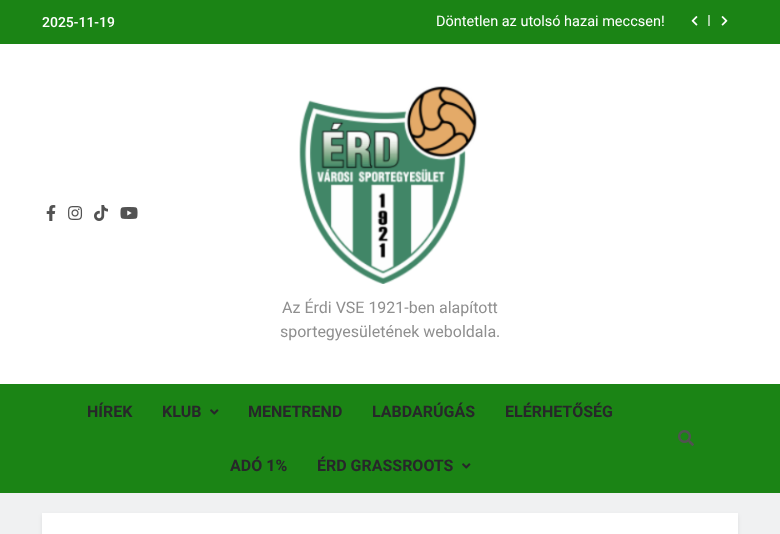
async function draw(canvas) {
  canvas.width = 780
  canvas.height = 534
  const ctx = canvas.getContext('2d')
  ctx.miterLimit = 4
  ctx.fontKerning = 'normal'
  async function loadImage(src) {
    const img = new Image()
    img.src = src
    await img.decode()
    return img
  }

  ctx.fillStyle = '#f0f1f2'
  ctx.fillRect(0, 0, 780, 534)
  ctx.fillStyle = '#1b8415'
  ctx.fillRect(0, 0, 780, 44)
  ctx.font = '500 14px Roboto'
  ctx.fillStyle = '#fff'
  ctx.fillText('2025-11-19', 42, 27)
  ctx.font = '14.5px Roboto'
  ctx.fillText('Döntetlen az utolsó hazai meccsen!', 436, 26)
  ctx.drawImage(await loadImage('image0.png'), 691, 16, 7, 10)
  ctx.fillStyle = '#a4cea1'
  ctx.fillRect(708, 15, 2, 11)
  ctx.drawImage(await loadImage('image1.png'), 721, 16, 7, 10)
  ctx.fillStyle = '#fff'
  ctx.fillRect(0, 44, 780, 340)
  ctx.drawImage(await loadImage('image2.png'), 46, 205, 10, 16)
  ctx.drawImage(await loadImage('image3.png'), 68, 206, 15, 14)
  ctx.drawImage(await loadImage('image4.png'), 94, 205, 14, 16)
  ctx.drawImage(await loadImage('image5.png'), 120, 207, 18, 12)
  ctx.drawImage(await loadImage('image6.png'), 299, 86, 179, 198)
  ctx.font = '16px Roboto'
  ctx.fillStyle = '#8f8f8f'
  ctx.fillText('Az Érdi VSE 1921-ben alapított', 282, 313)
  ctx.fillText('sportegyesületének weboldala.', 280, 337)
  ctx.fillStyle = '#1b8415'
  ctx.fillRect(0, 384, 780, 109)
  ctx.font = 'bold 16px Roboto'
  ctx.fillStyle = '#27272a'
  ctx.fillText('HÍREK', 87, 417)
  ctx.fillText('KLUB', 162, 417)
  ctx.drawImage(await loadImage('image7.png'), 210, 409, 9, 6)
  ctx.fillText('MENETREND', 248, 417)
  ctx.fillText('LABDARÚGÁS', 372, 417)
  ctx.fillText('ELÉRHETŐSÉG', 505, 417)
  ctx.fillText('ADÓ 1%', 230, 471)
  ctx.fillText('ÉRD GRASSROOTS', 317, 471)
  ctx.drawImage(await loadImage('image7.png'), 462, 463, 9, 6)
  ctx.drawImage(await loadImage('image8.png'), 678, 430, 16, 16)
  ctx.fillStyle = '#00000014'
  ctx.filter = 'blur(2px)'
  ctx.beginPath()
  ctx.rect(42, 515, 696, 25)
  ctx.fill()
  ctx.filter = 'none'
  ctx.fillStyle = '#fff'
  ctx.fillRect(42, 513, 696, 21)
}

draw(document.querySelector('canvas'))
